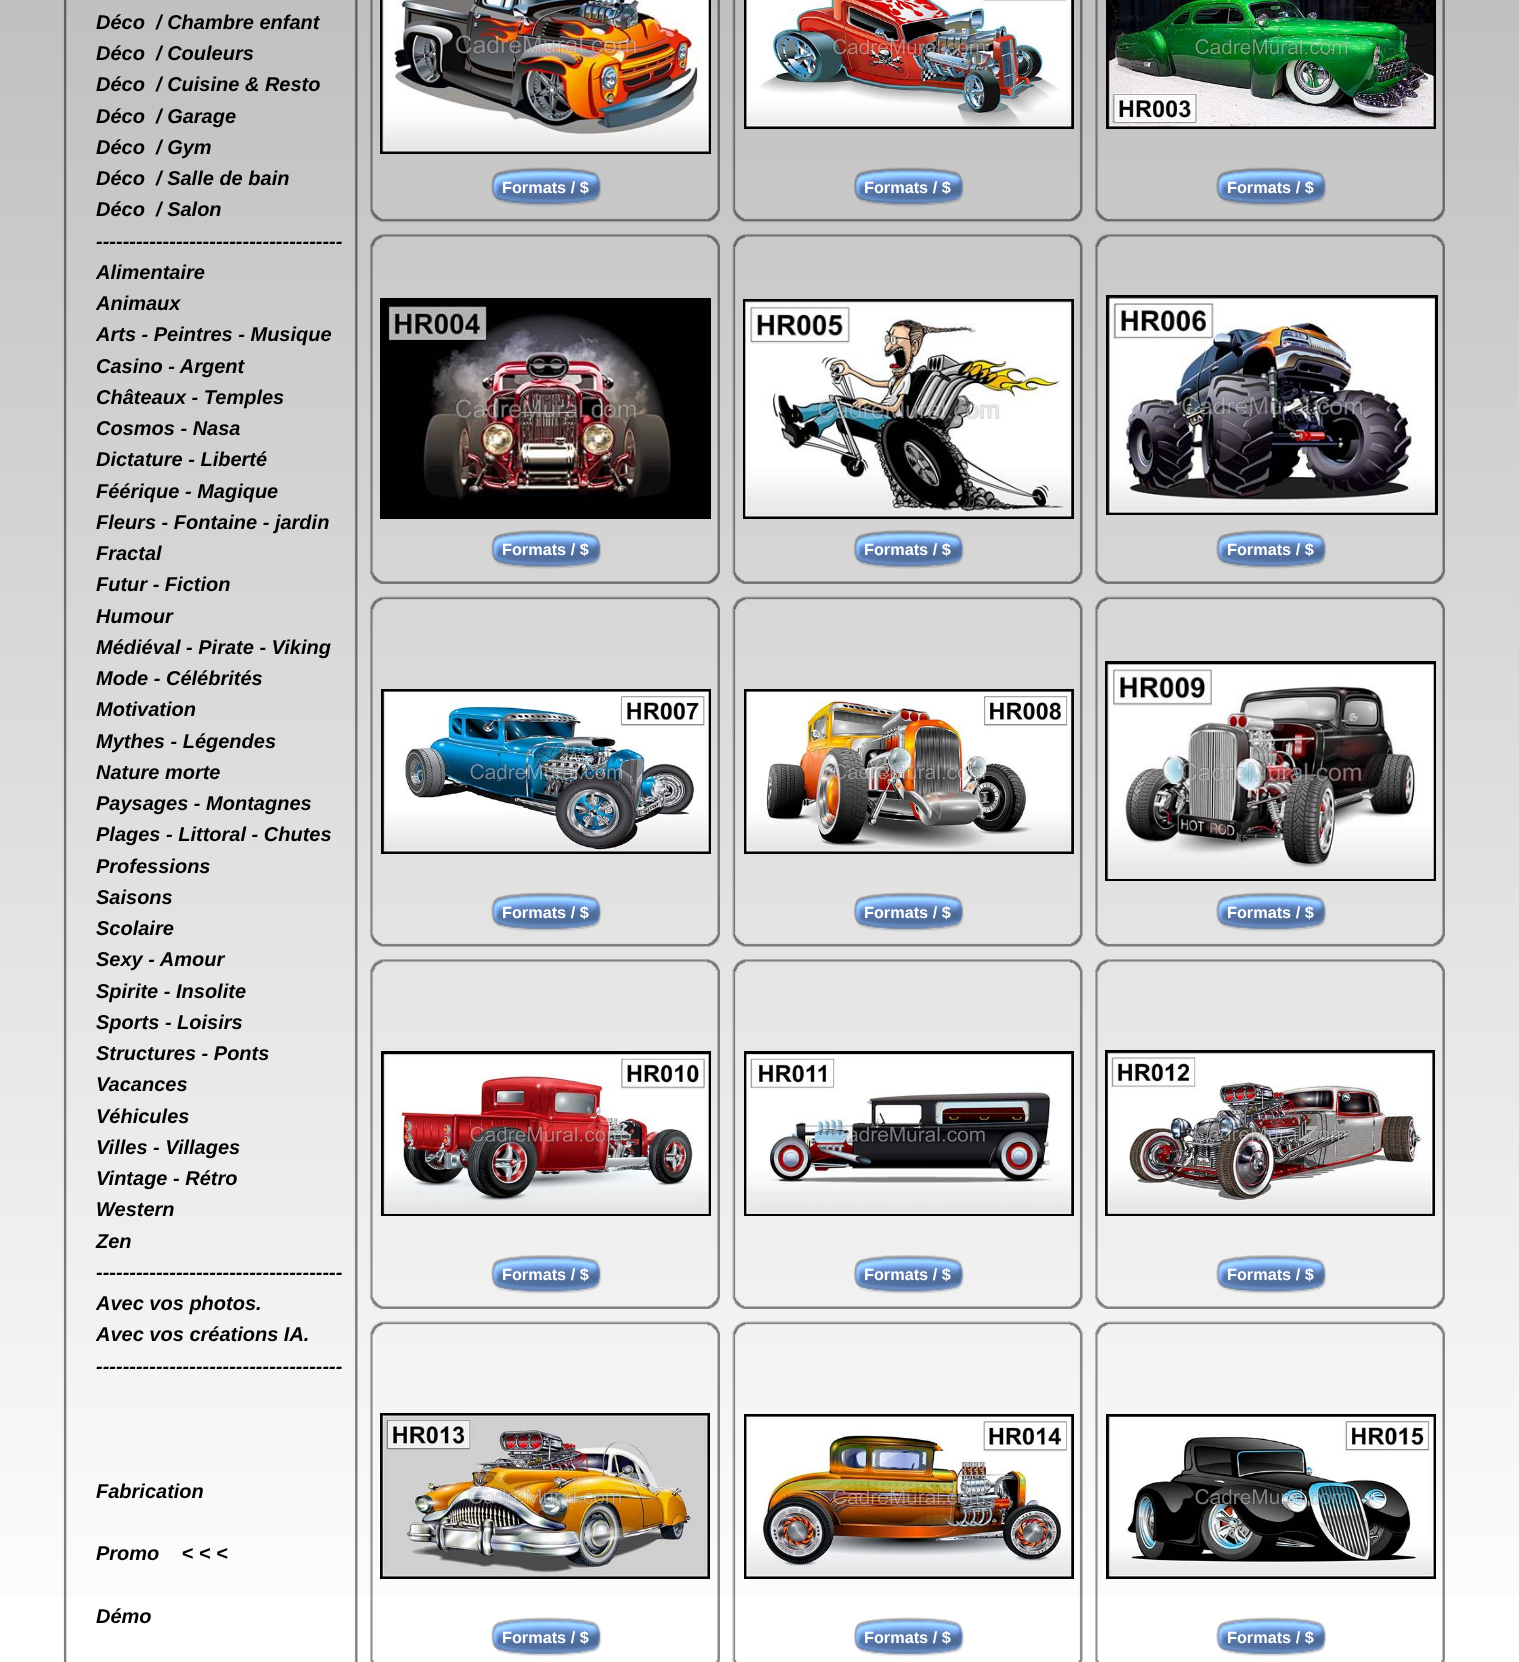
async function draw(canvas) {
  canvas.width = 1519
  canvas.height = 1662
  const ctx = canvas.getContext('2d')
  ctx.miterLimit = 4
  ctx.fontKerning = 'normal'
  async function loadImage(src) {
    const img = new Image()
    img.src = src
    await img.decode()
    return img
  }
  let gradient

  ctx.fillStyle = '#fff'
  ctx.fillRect(0, 0, 1519, 1662)
  gradient = ctx.createLinearGradient(760, 0, 760, 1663)
  gradient.addColorStop(0, '#c0c0c0')
  gradient.addColorStop(1, '#fff')
  ctx.fillStyle = gradient
  ctx.fillRect(0, 0, 1519, 1597)
  ctx.drawImage(await loadImage('image0.png'), 63, 0, 295, 1662)
  ctx.font = 'italic bold 20px Liberation Sans'
  ctx.fillStyle = '#000'
  ctx.fillText('Déco  / Chambre enfant', 96, 29)
  ctx.fillText('Déco  / Couleurs', 96, 60)
  ctx.fillText('Déco  / Cuisine & Resto', 96, 91)
  ctx.fillText('Déco  / Garage', 96, 123)
  ctx.fillText('Déco  / Gym', 96, 154)
  ctx.fillText('Déco  / Salle de bain', 96, 185)
  ctx.fillText('Déco  / Salon', 96, 216)
  ctx.fillText('-------------------------------------', 96, 248)
  ctx.fillText('Alimentaire', 96, 279)
  ctx.fillText('Animaux', 96, 310)
  ctx.fillText('Arts - Peintres - Musique', 96, 341)
  ctx.fillText('Casino - Argent', 96, 373)
  ctx.fillText('Châteaux - Temples', 96, 404)
  ctx.fillText('Cosmos - Nasa', 96, 435)
  ctx.fillText('Dictature - Liberté', 96, 466)
  ctx.fillText('Féérique - Magique', 96, 498)
  ctx.fillText('Fleurs - Fontaine - jardin', 96, 529)
  ctx.fillText('Fractal', 96, 560)
  ctx.fillText('Futur - Fiction', 96, 591)
  ctx.fillText('Humour', 96, 623)
  ctx.fillText('Médiéval - Pirate - Viking', 96, 654)
  ctx.fillText('Mode - Célébrités', 96, 685)
  ctx.fillText('Motivation', 96, 716)
  ctx.fillText('Mythes - Légendes', 96, 748)
  ctx.fillText('Nature morte', 96, 779)
  ctx.fillText('Paysages - Montagnes', 96, 810)
  ctx.fillText('Plages - Littoral - Chutes', 96, 841)
  ctx.fillText('Professions', 96, 873)
  ctx.fillText('Saisons', 96, 904)
  ctx.fillText('Scolaire', 96, 935)
  ctx.fillText('Sexy - Amour', 96, 966)
  ctx.fillText('Spirite - Insolite', 96, 998)
  ctx.fillText('Sports - Loisirs', 96, 1029)
  ctx.fillText('Structures - Ponts', 96, 1060)
  ctx.fillText('Vacances', 96, 1091)
  ctx.fillText('Véhicules', 96, 1123)
  ctx.fillText('Villes - Villages', 96, 1154)
  ctx.fillText('Vintage - Rétro', 96, 1185)
  ctx.fillText('Western', 96, 1216)
  ctx.fillText('Zen', 96, 1248)
  ctx.fillText('-------------------------------------', 96, 1279)
  ctx.fillText('Avec vos photos.', 96, 1310)
  ctx.fillText('Avec vos créations IA.', 96, 1341)
  ctx.fillText('-------------------------------------', 96, 1373)
  ctx.fillText('Fabrication', 96, 1498)
  ctx.fillText('Promo    < < <', 96, 1560)
  ctx.fillText('Démo', 96, 1623)
  ctx.drawImage(await loadImage('image1.png'), 370, 0, 350, 222)
  ctx.strokeStyle = '#000'
  ctx.lineWidth = 3
  ctx.strokeRect(381.5, -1.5, 328, 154)
  ctx.drawImage(await loadImage('image2.png'), 382, 0, 327, 152)
  ctx.drawImage(await loadImage('image3.png'), 491, 167, 111, 40)
  ctx.font = 'bold 16.25px Liberation Sans'
  ctx.fillStyle = '#fff'
  ctx.fillText('Formats / $', 502, 193)
  ctx.drawImage(await loadImage('image4.png'), 732, 0, 351, 222)
  ctx.strokeRect(745.5, -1.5, 327, 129)
  ctx.drawImage(await loadImage('image5.png'), 746, 0, 326, 127)
  ctx.drawImage(await loadImage('image6.png'), 853, 167, 111, 40)
  ctx.fillText('Formats / $', 864, 193)
  ctx.drawImage(await loadImage('image7.png'), 1095, 0, 350, 222)
  ctx.strokeRect(1107.5, -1.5, 327, 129)
  ctx.drawImage(await loadImage('image8.png'), 1108, 0, 326, 127)
  ctx.drawImage(await loadImage('image9.png'), 1216, 167, 111, 40)
  ctx.fillText('Formats / $', 1227, 193)
  ctx.drawImage(await loadImage('image10.png'), 370, 234, 350, 350)
  ctx.strokeRect(381.5, 299.5, 328, 218)
  ctx.drawImage(await loadImage('image11.png'), 383, 300, 325, 216)
  ctx.drawImage(await loadImage('image12.png'), 491, 530, 111, 39)
  ctx.fillText('Formats / $', 502, 555)
  ctx.drawImage(await loadImage('image13.png'), 732, 234, 351, 350)
  ctx.strokeRect(744.5, 300.5, 328, 217)
  ctx.drawImage(await loadImage('image14.png'), 745, 301, 327, 216)
  ctx.drawImage(await loadImage('image15.png'), 853, 530, 111, 39)
  ctx.fillText('Formats / $', 864, 555)
  ctx.drawImage(await loadImage('image16.png'), 1095, 234, 350, 350)
  ctx.strokeRect(1107.5, 296.5, 329, 217)
  ctx.drawImage(await loadImage('image17.png'), 1108, 297, 327, 216)
  ctx.drawImage(await loadImage('image18.png'), 1216, 530, 111, 39)
  ctx.fillText('Formats / $', 1227, 555)
  ctx.drawImage(await loadImage('image19.png'), 370, 596, 350, 351)
  ctx.strokeRect(382.5, 690.5, 327, 162)
  ctx.drawImage(await loadImage('image20.png'), 383, 691, 326, 161)
  ctx.drawImage(await loadImage('image21.png'), 491, 892, 111, 40)
  ctx.fillText('Formats / $', 502, 918)
  ctx.drawImage(await loadImage('image22.png'), 732, 596, 351, 351)
  ctx.strokeRect(745.5, 690.5, 327, 162)
  ctx.drawImage(await loadImage('image23.png'), 746, 691, 326, 161)
  ctx.drawImage(await loadImage('image24.png'), 853, 892, 111, 40)
  ctx.fillText('Formats / $', 864, 918)
  ctx.drawImage(await loadImage('image25.png'), 1095, 596, 350, 351)
  ctx.strokeRect(1106.5, 662.5, 328, 217)
  ctx.drawImage(await loadImage('image26.png'), 1107, 664, 327, 215)
  ctx.drawImage(await loadImage('image27.png'), 1216, 892, 111, 40)
  ctx.fillText('Formats / $', 1227, 918)
  ctx.drawImage(await loadImage('image28.png'), 370, 959, 350, 350)
  ctx.strokeRect(382.5, 1052.5, 327, 162)
  ctx.drawImage(await loadImage('image29.png'), 383, 1054, 326, 160)
  ctx.drawImage(await loadImage('image30.png'), 491, 1255, 111, 39)
  ctx.fillText('Formats / $', 502, 1280)
  ctx.drawImage(await loadImage('image31.png'), 732, 959, 351, 350)
  ctx.strokeRect(745.5, 1052.5, 327, 162)
  ctx.drawImage(await loadImage('image32.png'), 746, 1054, 326, 160)
  ctx.drawImage(await loadImage('image33.png'), 853, 1255, 111, 39)
  ctx.fillText('Formats / $', 864, 1280)
  ctx.drawImage(await loadImage('image34.png'), 1095, 959, 350, 350)
  ctx.strokeRect(1106.5, 1051.5, 327, 163)
  ctx.drawImage(await loadImage('image35.png'), 1107, 1052, 326, 162)
  ctx.drawImage(await loadImage('image36.png'), 1216, 1255, 111, 39)
  ctx.fillText('Formats / $', 1227, 1280)
  ctx.drawImage(await loadImage('image37.png'), 370, 1321, 350, 341)
  ctx.strokeRect(381.5, 1414.5, 327, 163)
  ctx.drawImage(await loadImage('image38.png'), 382, 1415, 326, 162)
  ctx.drawImage(await loadImage('image39.png'), 491, 1617, 111, 40)
  ctx.fillText('Formats / $', 502, 1643)
  ctx.drawImage(await loadImage('image40.png'), 732, 1321, 351, 341)
  ctx.strokeRect(745.5, 1415.5, 327, 162)
  ctx.drawImage(await loadImage('image41.png'), 746, 1416, 326, 161)
  ctx.drawImage(await loadImage('image42.png'), 853, 1617, 111, 40)
  ctx.fillText('Formats / $', 864, 1643)
  ctx.drawImage(await loadImage('image43.png'), 1095, 1321, 350, 341)
  ctx.strokeRect(1107.5, 1415.5, 327, 162)
  ctx.drawImage(await loadImage('image44.png'), 1108, 1416, 326, 161)
  ctx.drawImage(await loadImage('image45.png'), 1216, 1617, 111, 40)
  ctx.fillText('Formats / $', 1227, 1643)
}

draw(document.querySelector('canvas'))
